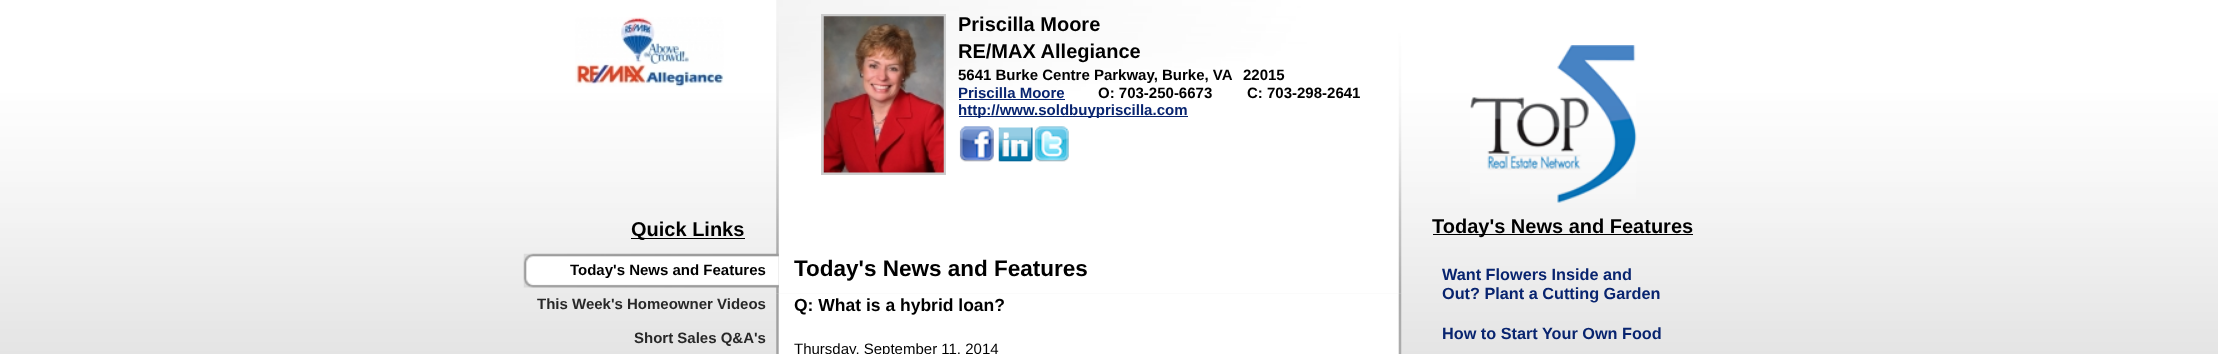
async function draw(canvas) {
  canvas.width = 2218
  canvas.height = 354
  const ctx = canvas.getContext('2d')
  ctx.miterLimit = 4
  ctx.fontKerning = 'normal'
  async function loadImage(src) {
    const img = new Image()
    img.src = src
    await img.decode()
    return img
  }

  ctx.fillStyle = '#fff'
  ctx.fillRect(0, 0, 2218, 354)
  ctx.drawImage(await loadImage('image0.png'), 0, 0, 2218, 354)
  ctx.drawImage(await loadImage('image1.png'), 575, 17, 149, 70)
  ctx.drawImage(await loadImage('image7.png'), 776, 0, 626, 294)
  ctx.strokeStyle = '#ccc'
  ctx.lineWidth = 3
  ctx.strokeRect(822.5, 15.5, 122, 158)
  ctx.drawImage(await loadImage('image2.png'), 823, 16, 121, 157)
  ctx.font = 'bold 20px Liberation Sans'
  ctx.fillStyle = '#000'
  ctx.fillText('Priscilla Moore', 958, 31)
  ctx.fillText('RE/MAX Allegiance', 958, 58)
  ctx.font = 'bold 15px Liberation Sans'
  ctx.fillText('5641 Burke Centre Parkway, Burke, VA', 958, 80)
  ctx.fillText('22015', 1243, 80)
  ctx.fillStyle = '#08246f'
  ctx.fillText('Priscilla Moore', 958, 98)
  ctx.fillRect(959, 99, 106, 1)
  ctx.fillStyle = '#000'
  ctx.fillText('O: 703-250-6673', 1098, 98)
  ctx.fillText('C: 703-298-2641', 1247, 98)
  ctx.fillStyle = '#08246f'
  ctx.fillRect(959, 116, 229, 1)
  ctx.fillText('http://www.soldbuypriscilla.com', 958, 115)
  ctx.drawImage(await loadImage('image3.png'), 959, 126, 35, 36)
  ctx.drawImage(await loadImage('image4.png'), 998, 127, 35, 35)
  ctx.drawImage(await loadImage('image5.png'), 1034, 126, 35, 36)
  ctx.fillStyle = '#000'
  ctx.fillRect(631, 238, 114, 1)
  ctx.font = 'bold 20px Liberation Sans'
  ctx.fillText('Quick Links', 631, 236)
  ctx.drawImage(await loadImage('image6.png'), 523, 253, 256, 35)
  ctx.font = 'bold 15px Liberation Sans'
  ctx.fillText('Today\'s News and Features', 570, 275)
  ctx.fillStyle = '#282828'
  ctx.fillText('This Week\'s Homeowner Videos', 537, 309)
  ctx.fillText('Short Sales Q&A\'s', 634, 343)
  ctx.drawImage(await loadImage('image8.png'), 776, 293, 626, 61)
  ctx.font = 'bold 22.5px Liberation Sans'
  ctx.fillStyle = '#000'
  ctx.fillText('Today\'s News and Features', 794, 276)
  ctx.font = 'bold 17.5px Liberation Sans'
  ctx.fillText('Q: What is a hybrid loan?', 794, 311)
  ctx.font = '15px Liberation Sans'
  ctx.fillText('Thursday, September 11, 2014', 794, 354)
  ctx.drawImage(await loadImage('image9.png'), 1470, 45, 167, 158)
  ctx.fillRect(1433, 234, 260, 1)
  ctx.font = 'bold 20px Liberation Sans'
  ctx.fillText('Today\'s News and Features', 1432, 233)
  ctx.font = 'bold 16.25px Liberation Sans'
  ctx.fillStyle = '#08246f'
  ctx.fillText('Want Flowers Inside and', 1442, 280)
  ctx.fillText('Out? Plant a Cutting Garden', 1442, 299)
  ctx.fillText('How to Start Your Own Food', 1442, 339)
}

draw(document.querySelector('canvas'))
